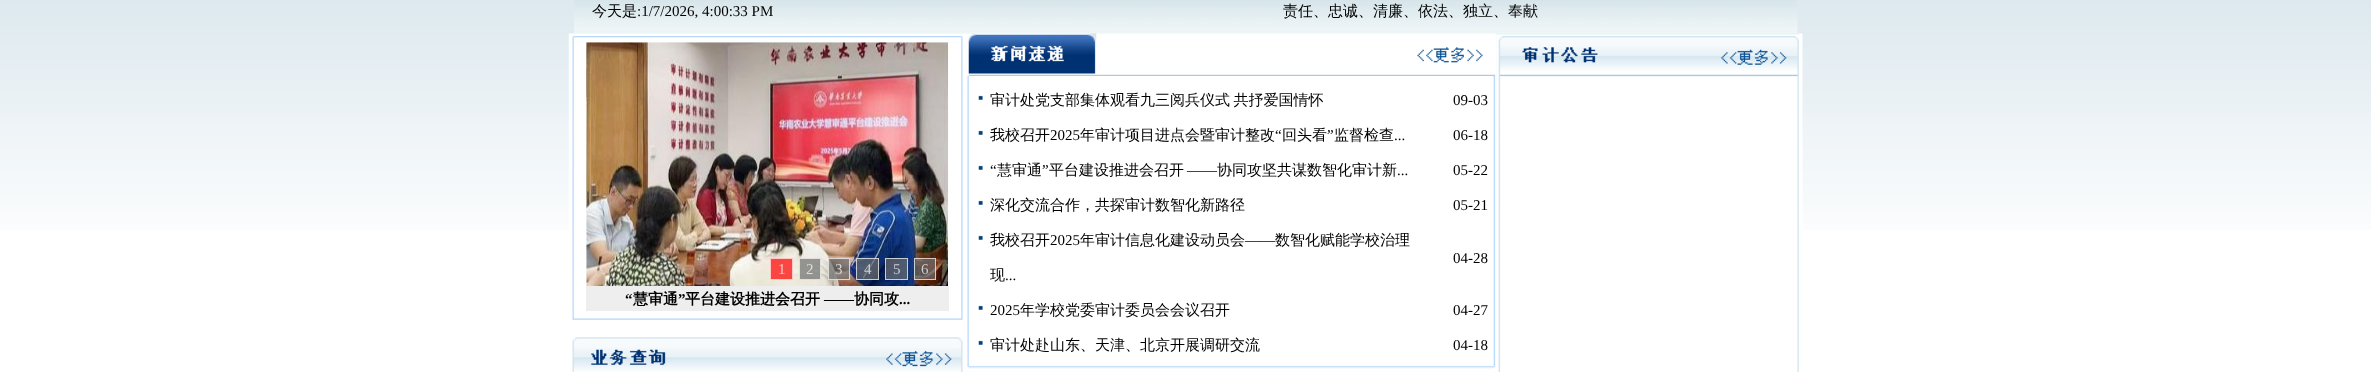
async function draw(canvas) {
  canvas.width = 2371
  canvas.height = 372
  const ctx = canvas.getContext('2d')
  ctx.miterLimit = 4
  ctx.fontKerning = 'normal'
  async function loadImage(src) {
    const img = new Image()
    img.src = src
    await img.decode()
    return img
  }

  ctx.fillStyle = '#fff'
  ctx.fillRect(0, 0, 2371, 372)
  ctx.drawImage(await loadImage('image0.png'), 0, 0, 2371, 230)
  ctx.drawImage(await loadImage('image1.png'), 574, 0, 1224, 34)
  ctx.font = '500 15px WenQuanYi Zen Hei'
  ctx.fillStyle = '#000'
  ctx.fillText('今天是', 592, 16)
  ctx.font = '15px Liberation Serif'
  ctx.fillText(':1/7/2026, 4:00:33 PM', 637, 16)
  ctx.font = '500 15px WenQuanYi Zen Hei'
  ctx.fillText('责任、忠诚、清廉、依法、独立、奉献', 1283, 16)
  ctx.drawImage(await loadImage('image2.png'), 568, 33, 399, 10)
  ctx.drawImage(await loadImage('image3.png'), 568, 42, 399, 269)
  ctx.drawImage(await loadImage('image4.png'), 586, 42, 363, 244)
  ctx.fillStyle = '#ff0000b3'
  ctx.fillRect(770, 258, 23, 22)
  ctx.strokeStyle = '#ffffffb3'
  ctx.strokeRect(770.5, 258.5, 22, 21)
  ctx.font = '15px Liberation Serif'
  ctx.fillStyle = '#fec8c6'
  ctx.fillText('1', 778, 274)
  ctx.fillStyle = '#6c6d6eb3'
  ctx.fillRect(799, 258, 22, 22)
  ctx.strokeRect(799.5, 258.5, 21, 21)
  ctx.fillStyle = '#dededd'
  ctx.fillText('2', 806, 274)
  ctx.fillStyle = '#6c6d6eb3'
  ctx.fillRect(828, 258, 22, 22)
  ctx.strokeRect(828.5, 258.5, 21, 21)
  ctx.fillStyle = '#d7d4d3'
  ctx.fillText('3', 835, 274)
  ctx.fillStyle = '#6c6d6eb3'
  ctx.fillRect(856, 258, 23, 22)
  ctx.strokeRect(856.5, 258.5, 22, 21)
  ctx.fillStyle = '#cdd0d4'
  ctx.fillText('4', 864, 274)
  ctx.fillStyle = '#6c6d6eb3'
  ctx.fillRect(885, 258, 23, 22)
  ctx.strokeRect(885.5, 258.5, 22, 21)
  ctx.fillStyle = '#cdd0d4'
  ctx.fillText('5', 893, 274)
  ctx.fillStyle = '#6c6d6eb3'
  ctx.fillRect(914, 258, 22, 22)
  ctx.strokeRect(914.5, 258.5, 21, 21)
  ctx.fillStyle = '#cfcccb'
  ctx.fillText('6', 921, 274)
  ctx.fillStyle = '#eee'
  ctx.fillRect(586, 286, 363, 25)
  ctx.font = 'bold 15px Liberation Serif'
  ctx.fillStyle = '#000'
  ctx.fillText('“', 625, 304)
  ctx.font = 'bold 15px WenQuanYi Zen Hei'
  ctx.fillText('慧审通', 633, 304)
  ctx.font = 'bold 15px Liberation Serif'
  ctx.fillText('”', 678, 304)
  ctx.font = 'bold 15px WenQuanYi Zen Hei'
  ctx.fillText('平台建设推进会召开', 685, 304)
  ctx.fillText('协同攻', 854, 304)
  ctx.font = 'bold 15px Liberation Serif'
  ctx.fillText('——', 824, 304)
  ctx.fillText('...', 899, 304)
  ctx.drawImage(await loadImage('image5.png'), 572, 311, 391, 9)
  ctx.drawImage(await loadImage('image6.png'), 572, 337, 391, 35)
  ctx.drawImage(await loadImage('image7.png'), 966, 33, 531, 43)
  ctx.drawImage(await loadImage('image8.png'), 966, 76, 531, 287)
  ctx.drawImage(await loadImage('image9.png'), 978, 95, 5, 5)
  ctx.wordSpacing = '-1px'
  ctx.font = '500 15px WenQuanYi Zen Hei'
  ctx.fillText('审计处党支部集体观看九三阅兵仪式 共抒爱国情怀', 990, 105)
  ctx.wordSpacing = '0px'
  ctx.font = '15px Liberation Serif'
  ctx.fillText('09-03', 1453, 105)
  ctx.drawImage(await loadImage('image9.png'), 978, 130, 5, 5)
  ctx.font = '500 15px WenQuanYi Zen Hei'
  ctx.fillText('我校召开', 990, 140)
  ctx.font = '15px Liberation Serif'
  ctx.fillText('2025', 1050, 140)
  ctx.font = '500 15px WenQuanYi Zen Hei'
  ctx.fillText('年审计项目进点会暨审计整改', 1080, 140)
  ctx.font = '15px Liberation Serif'
  ctx.fillText('“', 1275, 140)
  ctx.font = '500 15px WenQuanYi Zen Hei'
  ctx.fillText('回头看', 1282, 140)
  ctx.font = '15px Liberation Serif'
  ctx.fillText('”', 1327, 140)
  ctx.font = '500 15px WenQuanYi Zen Hei'
  ctx.fillText('监督检查', 1334, 140)
  ctx.font = '15px Liberation Serif'
  ctx.fillText('...', 1394, 140)
  ctx.fillText('06-18', 1453, 140)
  ctx.drawImage(await loadImage('image9.png'), 978, 165, 5, 5)
  ctx.fillText('“', 990, 175)
  ctx.font = '500 15px WenQuanYi Zen Hei'
  ctx.fillText('慧审通', 997, 175)
  ctx.font = '15px Liberation Serif'
  ctx.fillText('”', 1042, 175)
  ctx.font = '500 15px WenQuanYi Zen Hei'
  ctx.fillText('平台建设推进会召开', 1049, 175)
  ctx.font = '15px Liberation Serif'
  ctx.fillText('——', 1187, 175)
  ctx.font = '500 15px WenQuanYi Zen Hei'
  ctx.fillText('协同攻坚共谋数智化审计新', 1217, 175)
  ctx.font = '15px Liberation Serif'
  ctx.fillText('...', 1397, 175)
  ctx.fillText('05-22', 1453, 175)
  ctx.drawImage(await loadImage('image9.png'), 978, 200, 5, 5)
  ctx.font = '500 15px WenQuanYi Zen Hei'
  ctx.fillText('深化交流合作，共探审计数智化新路径', 990, 210)
  ctx.font = '15px Liberation Serif'
  ctx.fillText('05-21', 1453, 210)
  ctx.drawImage(await loadImage('image9.png'), 978, 235, 5, 5)
  ctx.font = '500 15px WenQuanYi Zen Hei'
  ctx.fillText('我校召开', 990, 245)
  ctx.font = '15px Liberation Serif'
  ctx.fillText('2025', 1050, 245)
  ctx.font = '500 15px WenQuanYi Zen Hei'
  ctx.fillText('年审计信息化建设动员会', 1080, 245)
  ctx.font = '15px Liberation Serif'
  ctx.fillText('——', 1245, 245)
  ctx.font = '500 15px WenQuanYi Zen Hei'
  ctx.fillText('数智化赋能学校治理', 1275, 245)
  ctx.fillText('现', 990, 280)
  ctx.font = '15px Liberation Serif'
  ctx.fillText('...', 1005, 280)
  ctx.fillText('04-28', 1453, 263)
  ctx.drawImage(await loadImage('image9.png'), 978, 305, 5, 5)
  ctx.fillText('2025', 990, 315)
  ctx.font = '500 15px WenQuanYi Zen Hei'
  ctx.fillText('年学校党委审计委员会会议召开', 1020, 315)
  ctx.font = '15px Liberation Serif'
  ctx.fillText('04-27', 1453, 315)
  ctx.drawImage(await loadImage('image9.png'), 978, 340, 5, 5)
  ctx.font = '500 15px WenQuanYi Zen Hei'
  ctx.fillText('审计处赴山东、天津、北京开展调研交流', 990, 350)
  ctx.font = '15px Liberation Serif'
  ctx.fillText('04-18', 1453, 350)
  ctx.drawImage(await loadImage('image10.png'), 967, 362, 529, 7)
  ctx.drawImage(await loadImage('image11.png'), 1496, 33, 307, 48)
  ctx.drawImage(await loadImage('image12.png'), 1496, 81, 307, 291)
}

draw(document.querySelector('canvas'))
